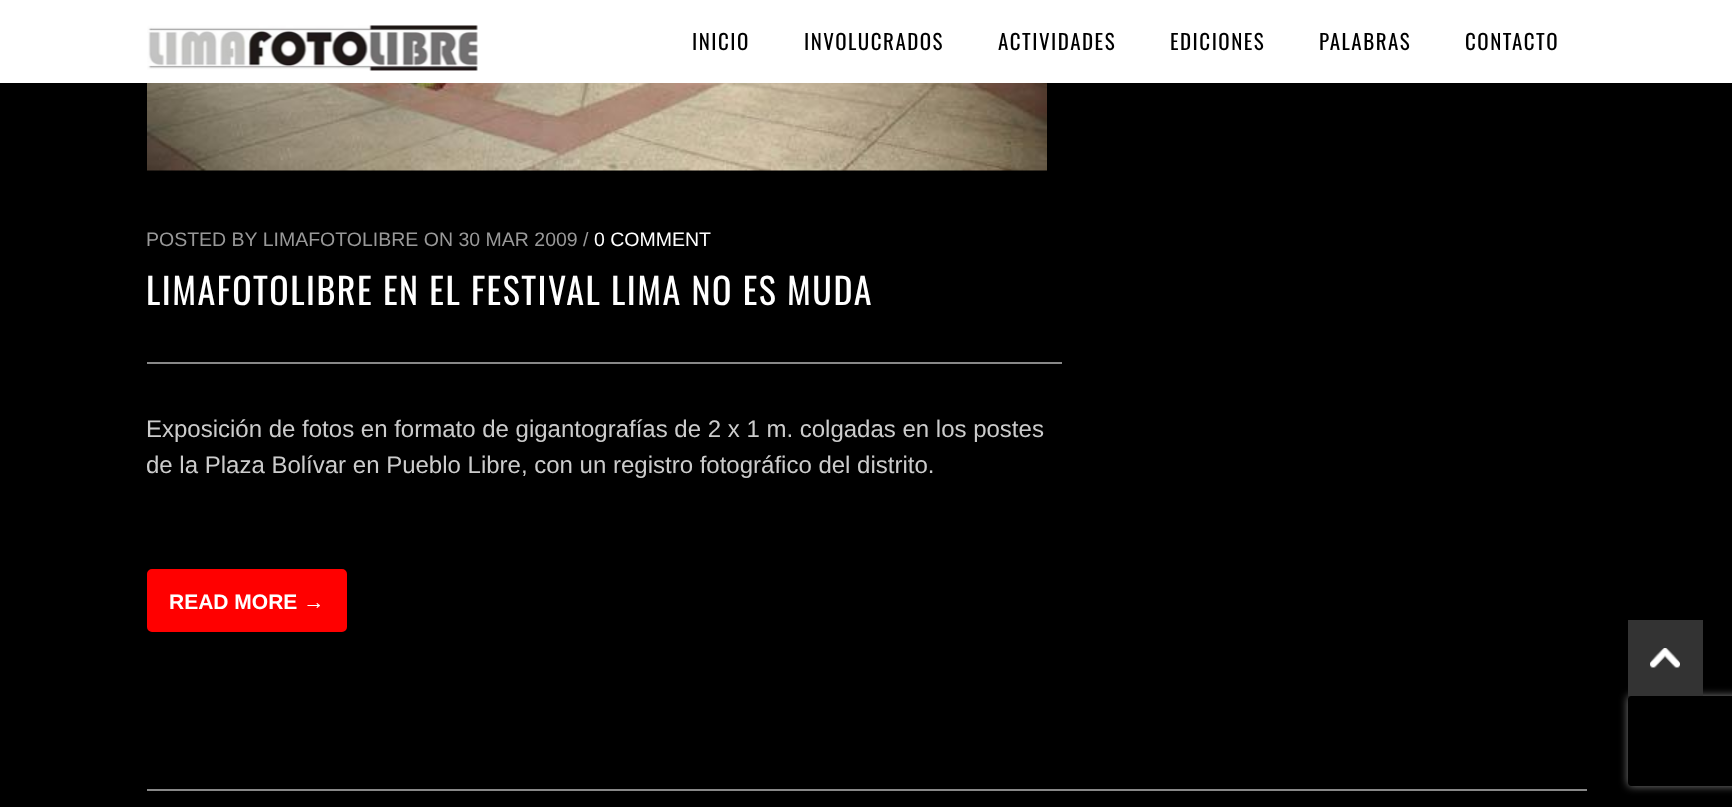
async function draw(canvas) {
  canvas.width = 1732
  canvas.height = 807
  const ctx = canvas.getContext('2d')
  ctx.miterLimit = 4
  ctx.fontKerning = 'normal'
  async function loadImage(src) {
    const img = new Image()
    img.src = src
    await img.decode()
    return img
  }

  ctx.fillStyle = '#000'
  ctx.fillRect(0, 0, 1732, 807)
  ctx.fillStyle = '#fff'
  ctx.fillRect(0, 0, 1732, 83)
  ctx.drawImage(await loadImage('image0.png'), 147, 25, 331, 46)
  ctx.letterSpacing = '1.5px'
  ctx.font = '21px Oswald'
  ctx.fillStyle = '#000'
  ctx.fillText('INICIO', 692, 50)
  ctx.fillText('INVOLUCRADOS', 804, 50)
  ctx.fillText('ACTIVIDADES', 998, 50)
  ctx.fillText('EDICIONES', 1170, 50)
  ctx.fillText('PALABRAS', 1319, 50)
  ctx.fillText('CONTACTO', 1465, 50)
  ctx.drawImage(await loadImage('image1.png'), 147, 83, 900, 88)
  ctx.letterSpacing = '0px'
  ctx.font = '19.5px Liberation Sans'
  ctx.fillStyle = '#999'
  ctx.fillText('POSTED BY LIMAFOTOLIBRE ON 30 MAR 2009 /', 146, 246)
  ctx.fillStyle = '#fff'
  ctx.fillText('0 COMMENT', 594, 246)
  ctx.letterSpacing = '1.5px'
  ctx.font = '36px Oswald'
  ctx.fillText('LIMAFOTOLIBRE EN EL FESTIVAL LIMA NO ES MUDA', 146, 305)
  ctx.fillStyle = '#888'
  ctx.fillRect(147, 362, 915, 2)
  ctx.letterSpacing = '0px'
  ctx.font = '24px Liberation Sans'
  ctx.fillStyle = '#ccc'
  ctx.fillText('Exposición de fotos en formato de gigantografías de 2 x 1 m. colgadas en los postes', 146, 437)
  ctx.fillText('de la Plaza Bolívar en Pueblo Libre, con un registro fotográfico del distrito.', 146, 473)
  ctx.fillStyle = '#f00'
  ctx.beginPath()
  ctx.roundRect(148, 570, 198, 61, 4)
  ctx.fill()
  ctx.strokeStyle = '#f00'
  ctx.lineWidth = 2
  ctx.stroke()
  ctx.font = 'bold 21px Liberation Sans'
  ctx.fillStyle = '#fff'
  ctx.fillText('READ MORE →', 169, 609)
  ctx.fillStyle = '#888'
  ctx.fillRect(147, 789, 1440, 2)
  ctx.save()
  ctx.beginPath()
  ctx.moveTo(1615, 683)
  ctx.lineTo(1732, 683)
  ctx.lineTo(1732, 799)
  ctx.lineTo(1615, 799)
  ctx.closePath()
  ctx.moveTo(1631, 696)
  ctx.lineTo(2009, 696)
  ctx.bezierCurveTo(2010.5, 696, 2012, 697.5, 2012, 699)
  ctx.lineTo(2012, 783)
  ctx.bezierCurveTo(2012, 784.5, 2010.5, 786, 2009, 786)
  ctx.lineTo(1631, 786)
  ctx.bezierCurveTo(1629.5, 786, 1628, 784.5, 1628, 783)
  ctx.lineTo(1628, 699)
  ctx.bezierCurveTo(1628, 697.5, 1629.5, 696, 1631, 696)
  ctx.closePath()
  ctx.clip('evenodd')
  ctx.fillStyle = '#808080'
  ctx.filter = 'blur(4px)'
  ctx.beginPath()
  ctx.roundRect(1628, 696, 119, 90, 3)
  ctx.fill()
  ctx.filter = 'none'
  ctx.restore()
  ctx.fillStyle = '#333'
  ctx.fillRect(1628, 620, 75, 76)
  ctx.drawImage(await loadImage('image2.png'), 1650, 648, 30, 20)
}

draw(document.querySelector('canvas'))
